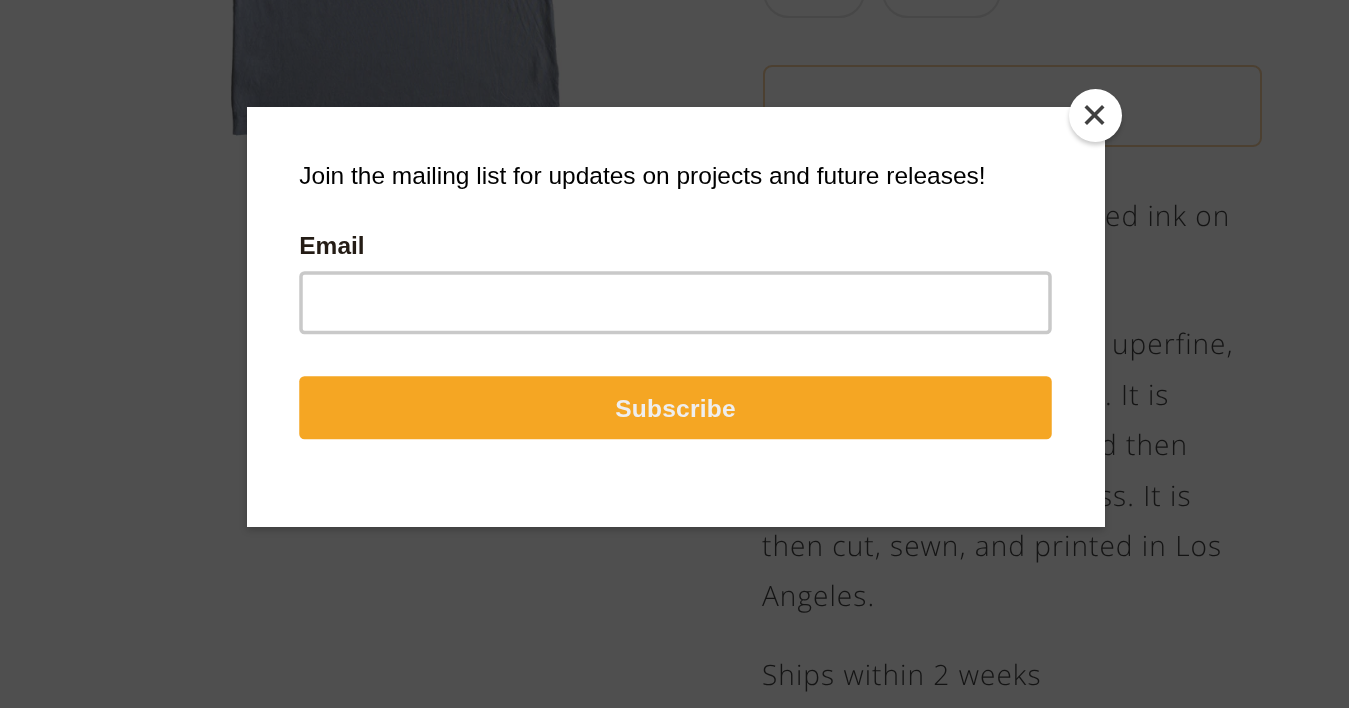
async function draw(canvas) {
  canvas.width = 1349
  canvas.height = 708
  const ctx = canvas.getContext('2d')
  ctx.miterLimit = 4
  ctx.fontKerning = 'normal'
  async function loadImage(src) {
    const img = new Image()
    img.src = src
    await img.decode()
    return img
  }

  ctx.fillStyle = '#4f4f4f'
  ctx.fillRect(0, 0, 1349, 708)
  ctx.drawImage(await loadImage('image1.png'), 230, 0, 332, 137)
  ctx.beginPath()
  ctx.roundRect(764, 66, 497, 80, 8)
  ctx.strokeStyle = '#4c4031'
  ctx.lineWidth = 2
  ctx.stroke()
  ctx.fillStyle = '#00000033'
  ctx.filter = 'blur(3.5px)'
  ctx.beginPath()
  ctx.rect(247, 110, 857, 420)
  ctx.fill()
  ctx.filter = 'none'
  ctx.letterSpacing = '1.05px'
  ctx.font = '300 28px Open Sans'
  ctx.fillStyle = '#141414'
  ctx.fillText('d then', 1100, 455)
  ctx.fillText('ss. It is', 1099, 506)
  ctx.drawImage(await loadImage('image0.png'), 247, 107, 858, 420)
  ctx.fillStyle = '#00000033'
  ctx.filter = 'blur(2px)'
  ctx.beginPath()
  ctx.roundRect(1069, 93, 53, 52, 26)
  ctx.fill()
  ctx.filter = 'none'
  ctx.fillStyle = '#fff'
  ctx.beginPath()
  ctx.arc(1095.5, 115.5, 26.5, 0, 2 * Math.PI)
  ctx.fill()
  ctx.fillStyle = '#414141'
  ctx.beginPath()
  ctx.moveTo(1102, 105)
  ctx.lineTo(1104.5, 107.5)
  ctx.lineTo(1087, 125)
  ctx.lineTo(1084.5, 122.5)
  ctx.closePath()
  ctx.fill()
  ctx.beginPath()
  ctx.moveTo(1084.5, 107.5)
  ctx.lineTo(1087, 105)
  ctx.lineTo(1104.5, 122.5)
  ctx.lineTo(1102, 125)
  ctx.closePath()
  ctx.fill()
  ctx.beginPath()
  ctx.roundRect(764, -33, 100, 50, 30.5)
  ctx.strokeStyle = '#474747'
  ctx.stroke()
  ctx.beginPath()
  ctx.roundRect(883, -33, 117, 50, 30.5)
  ctx.stroke()
  ctx.fillStyle = '#141414'
  ctx.fillText('ed ink on', 1105, 226)
  ctx.fillText('uperfine,', 1112, 354)
  ctx.fillText('. It is', 1105, 405)
  ctx.fillText('then cut, sewn, and printed in Los', 762, 556)
  ctx.fillText('Angeles.', 762, 606)
  ctx.fillText('Ships within 2 weeks', 762, 685)
}

draw(document.querySelector('canvas'))
